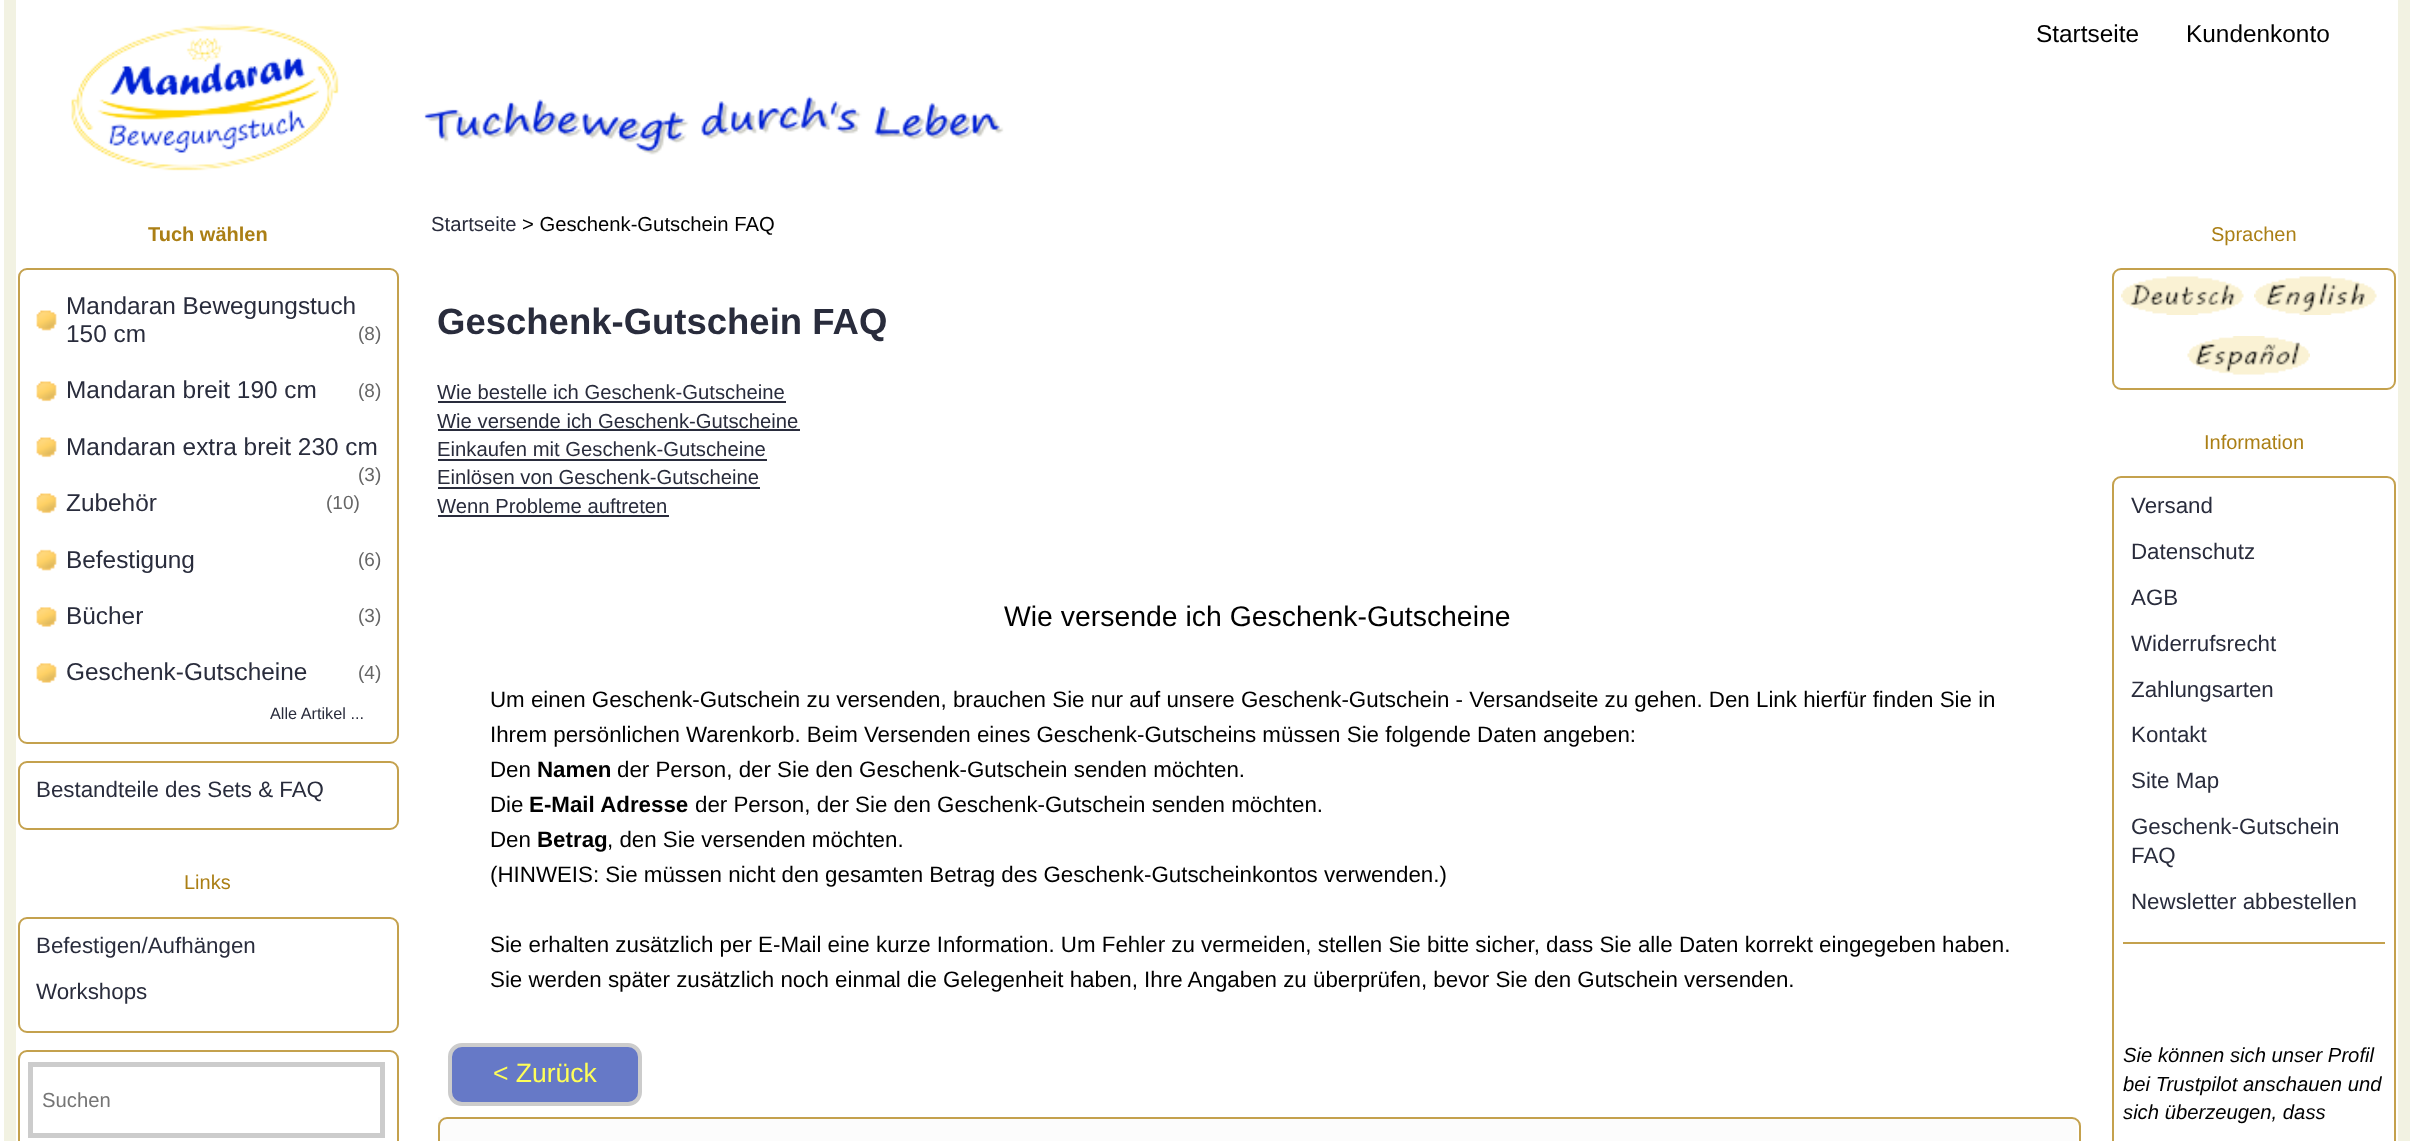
async function draw(canvas) {
  canvas.width = 2413
  canvas.height = 1141
  const ctx = canvas.getContext('2d')
  ctx.miterLimit = 4
  ctx.fontKerning = 'normal'
  async function loadImage(src) {
    const img = new Image()
    img.src = src
    await img.decode()
    return img
  }

  ctx.fillStyle = '#fff'
  ctx.fillRect(0, 0, 2413, 1141)
  ctx.strokeStyle = '#f2f2e2'
  ctx.lineWidth = 12
  ctx.strokeRect(10, -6, 2394, 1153)
  ctx.drawImage(await loadImage('image0.png'), 71, 24, 933, 147)
  ctx.font = '24.4px Liberation Sans'
  ctx.fillStyle = '#000'
  ctx.fillText('Startseite', 2036, 42)
  ctx.fillText('Kundenkonto', 2186, 42)
  ctx.font = 'bold 20px Liberation Sans'
  ctx.fillStyle = '#ab7f15'
  ctx.fillText('Tuch wählen', 148, 241)
  ctx.beginPath()
  ctx.roundRect(19, 269, 379, 474, 8)
  ctx.strokeStyle = '#c4a14d'
  ctx.lineWidth = 2
  ctx.stroke()
  ctx.drawImage(await loadImage('image1.png'), 36, 310, 21, 21)
  ctx.font = '24.4px Liberation Sans'
  ctx.fillStyle = '#292c3c'
  ctx.fillText('Mandaran Bewegungstuch', 66, 314)
  ctx.fillText('150 cm', 66, 342)
  ctx.font = '19px Liberation Sans'
  ctx.fillStyle = '#666'
  ctx.fillText('(8)', 358, 340)
  ctx.drawImage(await loadImage('image2.png'), 36, 381, 21, 21)
  ctx.font = '24.4px Liberation Sans'
  ctx.fillStyle = '#292c3c'
  ctx.fillText('Mandaran breit 190 cm', 66, 398)
  ctx.font = '19px Liberation Sans'
  ctx.fillStyle = '#666'
  ctx.fillText('(8)', 358, 397)
  ctx.drawImage(await loadImage('image2.png'), 36, 437, 21, 21)
  ctx.font = '24.4px Liberation Sans'
  ctx.fillStyle = '#292c3c'
  ctx.fillText('Mandaran extra breit 230 cm', 66, 455)
  ctx.font = '19px Liberation Sans'
  ctx.fillStyle = '#666'
  ctx.fillText('(3)', 358, 481)
  ctx.drawImage(await loadImage('image2.png'), 36, 493, 21, 21)
  ctx.font = '24.4px Liberation Sans'
  ctx.fillStyle = '#292c3c'
  ctx.fillText('Zubehör', 66, 511)
  ctx.font = '19px Liberation Sans'
  ctx.fillStyle = '#666'
  ctx.fillText('(10)', 326, 509)
  ctx.drawImage(await loadImage('image3.png'), 36, 549, 21, 22)
  ctx.font = '24.4px Liberation Sans'
  ctx.fillStyle = '#292c3c'
  ctx.fillText('Befestigung', 66, 568)
  ctx.font = '19px Liberation Sans'
  ctx.fillStyle = '#666'
  ctx.fillText('(6)', 358, 566)
  ctx.drawImage(await loadImage('image4.png'), 36, 607, 21, 20)
  ctx.font = '24.4px Liberation Sans'
  ctx.fillStyle = '#292c3c'
  ctx.fillText('Bücher', 66, 624)
  ctx.font = '19px Liberation Sans'
  ctx.fillStyle = '#666'
  ctx.fillText('(3)', 358, 622)
  ctx.drawImage(await loadImage('image4.png'), 36, 663, 21, 20)
  ctx.font = '24.4px Liberation Sans'
  ctx.fillStyle = '#292c3c'
  ctx.fillText('Geschenk-Gutscheine', 66, 680)
  ctx.font = '19px Liberation Sans'
  ctx.fillStyle = '#666'
  ctx.fillText('(4)', 358, 679)
  ctx.font = '16.25px Liberation Sans'
  ctx.fillStyle = '#292c3c'
  ctx.fillText('Alle Artikel ...', 270, 719)
  ctx.beginPath()
  ctx.roundRect(19, 762, 379, 67, 8)
  ctx.stroke()
  ctx.font = '22.33px Liberation Sans'
  ctx.fillText('Bestandteile des Sets & FAQ', 36, 797)
  ctx.font = '20px Liberation Sans'
  ctx.fillStyle = '#ab7f15'
  ctx.fillText('Links', 184, 889)
  ctx.beginPath()
  ctx.roundRect(19, 918, 379, 114, 8)
  ctx.stroke()
  ctx.font = '22.33px Liberation Sans'
  ctx.fillStyle = '#292c3c'
  ctx.fillText('Befestigen/Aufhängen', 36, 953)
  ctx.fillText('Workshops', 36, 999)
  ctx.beginPath()
  ctx.roundRect(19, 1051, 379, 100, 8)
  ctx.stroke()
  ctx.strokeStyle = '#ccc'
  ctx.lineWidth = 5
  ctx.strokeRect(30.5, 1064.5, 352, 71)
  ctx.font = '20.25px Liberation Sans'
  ctx.fillStyle = '#757575'
  ctx.fillText('Suchen', 42, 1107)
  ctx.fillStyle = '#292c3c'
  ctx.fillText('Startseite', 431, 231)
  ctx.fillStyle = '#000'
  ctx.fillText('> Geschenk-Gutschein FAQ', 522, 231)
  ctx.font = 'bold 36.5px Liberation Sans'
  ctx.fillStyle = '#292c3c'
  ctx.fillText('Geschenk-Gutschein FAQ', 437, 334)
  ctx.font = '20.25px Liberation Sans'
  ctx.fillText('Wie bestelle ich Geschenk-Gutscheine', 437, 399)
  ctx.fillRect(438, 401, 348, 2)
  ctx.fillText('Wie versende ich Geschenk-Gutscheine', 437, 428)
  ctx.fillRect(438, 429, 362, 2)
  ctx.fillText('Einkaufen mit Geschenk-Gutscheine', 437, 456)
  ctx.fillRect(438, 459, 329, 2)
  ctx.fillText('Einlösen von Geschenk-Gutscheine', 437, 484)
  ctx.fillRect(438, 487, 322, 2)
  ctx.fillText('Wenn Probleme auftreten', 437, 513)
  ctx.fillRect(438, 515, 231, 2)
  ctx.font = '28.4px Liberation Sans'
  ctx.fillStyle = '#000'
  ctx.fillText('Wie versende ich Geschenk-Gutscheine', 1004, 626)
  ctx.font = '22.33px Liberation Sans'
  ctx.fillText('Um einen Geschenk-Gutschein zu versenden, brauchen Sie nur auf unsere Geschenk-Gutschein - Versandseite zu gehen. Den Link hierfür finden Sie in', 490, 707)
  ctx.fillText('Ihrem persönlichen Warenkorb. Beim Versenden eines Geschenk-Gutscheins müssen Sie folgende Daten angeben:', 490, 742)
  ctx.fillText('Den', 490, 777)
  ctx.font = 'bold 22.33px Liberation Sans'
  ctx.fillText('Namen', 537, 777)
  ctx.font = '22.33px Liberation Sans'
  ctx.fillText('der Person, der Sie den Geschenk-Gutschein senden möchten.', 617, 777)
  ctx.fillText('Die', 490, 812)
  ctx.font = 'bold 22.33px Liberation Sans'
  ctx.fillText('E-Mail Adresse', 529, 812)
  ctx.font = '22.33px Liberation Sans'
  ctx.fillText('der Person, der Sie den Geschenk-Gutschein senden möchten.', 695, 812)
  ctx.fillText('Den', 490, 847)
  ctx.font = 'bold 22.33px Liberation Sans'
  ctx.fillText('Betrag', 537, 847)
  ctx.font = '22.33px Liberation Sans'
  ctx.fillText(', den Sie versenden möchten.', 607, 847)
  ctx.fillText('(HINWEIS: Sie müssen nicht den gesamten Betrag des Geschenk-Gutscheinkontos verwenden.)', 490, 882)
  ctx.fillText('Sie erhalten zusätzlich per E-Mail eine kurze Information. Um Fehler zu vermeiden, stellen Sie bitte sicher, dass Sie alle Daten korrekt eingegeben haben.', 490, 952)
  ctx.fillText('Sie werden später zusätzlich noch einmal die Gelegenheit haben, Ihre Angaben zu überprüfen, bevor Sie den Gutschein versenden.', 490, 987)
  ctx.fillStyle = '#6679c7'
  ctx.beginPath()
  ctx.roundRect(450, 1045, 190, 59, 12)
  ctx.fill()
  ctx.lineWidth = 4
  ctx.stroke()
  ctx.font = '26.5px Liberation Sans'
  ctx.fillStyle = '#fefe59'
  ctx.fillText('< Zurück', 493, 1082)
  ctx.fillStyle = '#fcfcfc'
  ctx.fillRect(438, 1117, 1639, 24)
  ctx.beginPath()
  ctx.roundRect(439, 1118, 1641, 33, 8)
  ctx.strokeStyle = '#c4a14d'
  ctx.lineWidth = 2
  ctx.stroke()
  ctx.font = '20px Liberation Sans'
  ctx.fillStyle = '#ab7f15'
  ctx.fillText('Sprachen', 2211, 241)
  ctx.beginPath()
  ctx.roundRect(2113, 269, 282, 120, 8)
  ctx.stroke()
  ctx.drawImage(await loadImage('image5.png'), 2121, 276, 123, 39)
  ctx.drawImage(await loadImage('image6.png'), 2254, 276, 123, 39)
  ctx.drawImage(await loadImage('image7.png'), 2187, 336, 123, 39)
  ctx.fillText('Information', 2204, 449)
  ctx.beginPath()
  ctx.roundRect(2113, 477, 282, 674, 8)
  ctx.stroke()
  ctx.font = '22.33px Liberation Sans'
  ctx.fillStyle = '#292c3c'
  ctx.fillText('Versand', 2131, 513)
  ctx.fillText('Datenschutz', 2131, 559)
  ctx.fillText('AGB', 2131, 605)
  ctx.fillText('Widerrufsrecht', 2131, 651)
  ctx.fillText('Zahlungsarten', 2131, 697)
  ctx.fillText('Kontakt', 2131, 742)
  ctx.fillText('Site Map', 2131, 788)
  ctx.fillText('Geschenk-Gutschein', 2131, 834)
  ctx.fillText('FAQ', 2131, 863)
  ctx.fillText('Newsletter abbestellen', 2131, 909)
  ctx.fillStyle = '#c4a14d'
  ctx.fillRect(2123, 942, 262, 2)
  ctx.font = 'italic 20.25px Liberation Sans'
  ctx.fillStyle = '#000'
  ctx.fillText('Sie können sich unser Profil', 2123, 1062)
  ctx.fillText('bei Trustpilot anschauen und', 2123, 1091)
  ctx.fillText('sich überzeugen, dass', 2123, 1119)
}

draw(document.querySelector('canvas'))
